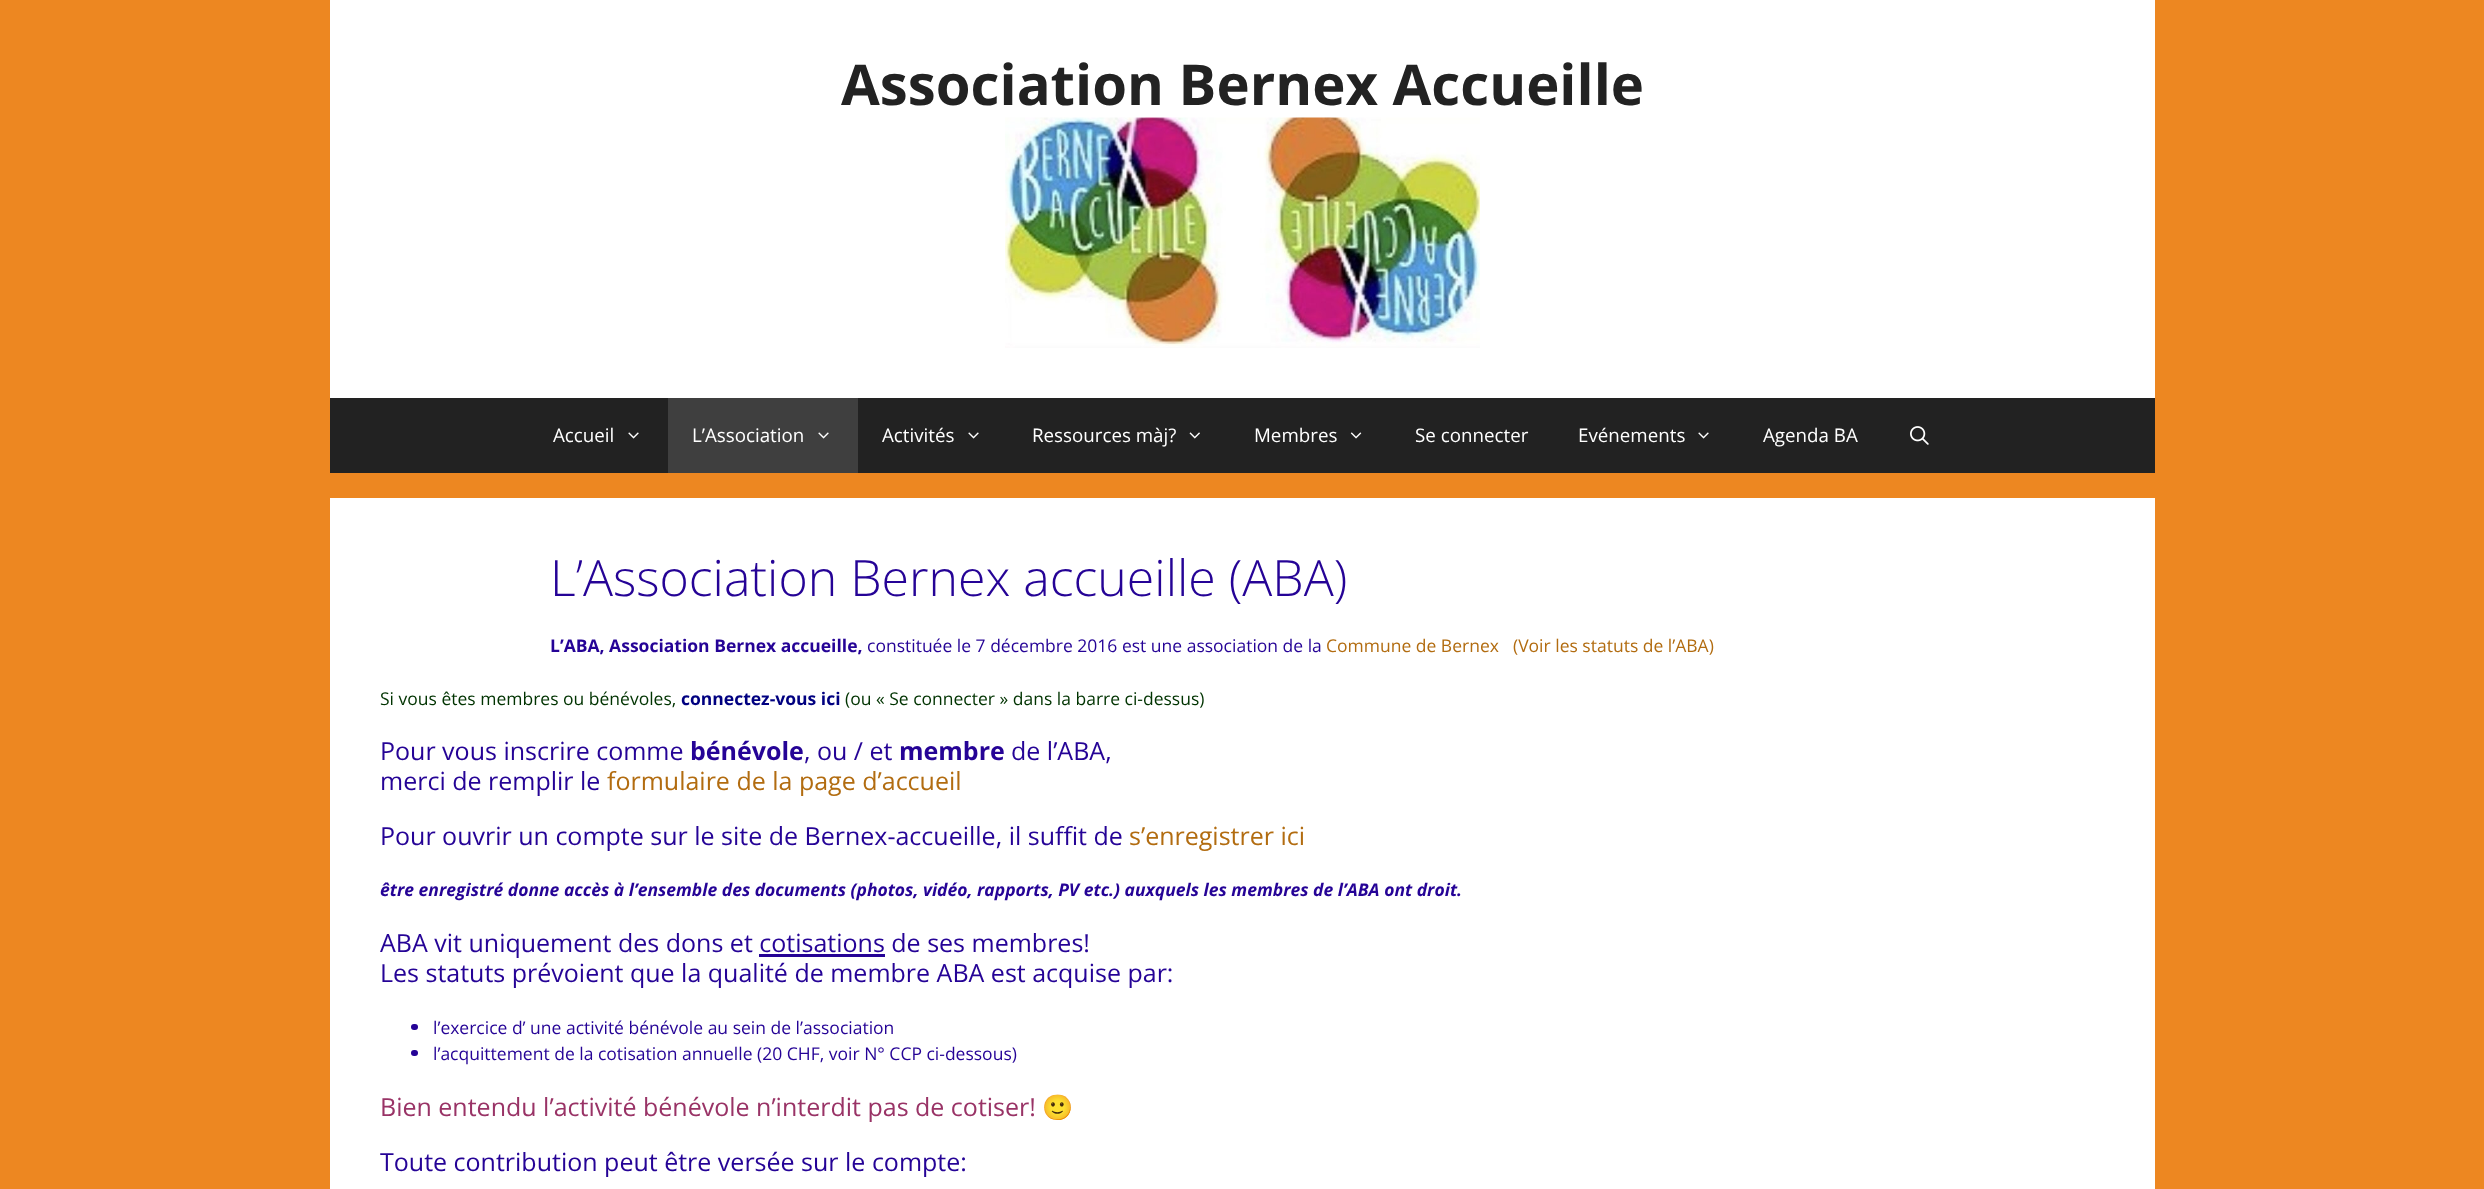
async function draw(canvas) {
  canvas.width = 2484
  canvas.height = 1189
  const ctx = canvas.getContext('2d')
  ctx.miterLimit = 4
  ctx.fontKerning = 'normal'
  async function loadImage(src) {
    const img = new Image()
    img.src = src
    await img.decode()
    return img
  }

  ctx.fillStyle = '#ed8721'
  ctx.fillRect(0, 0, 2484, 1189)
  ctx.fillStyle = '#fff'
  ctx.fillRect(330, 0, 1825, 398)
  ctx.font = 'bold 56.25px Open Sans'
  ctx.fillStyle = '#222'
  ctx.fillText('Association Bernex Accueille', 841, 105)
  ctx.drawImage(await loadImage('image0.png'), 1005, 117, 475, 231)
  ctx.fillRect(330, 398, 1825, 75)
  ctx.font = '18.75px Open Sans'
  ctx.fillStyle = '#fff'
  ctx.fillText('Accueil', 553, 442)
  ctx.drawImage(await loadImage('image1.png'), 628, 432, 11, 7)
  ctx.fillStyle = '#3f3f3f'
  ctx.fillRect(668, 398, 190, 75)
  ctx.fillStyle = '#fff'
  ctx.fillText('L’Association', 692, 442)
  ctx.drawImage(await loadImage('image2.png'), 818, 432, 11, 7)
  ctx.fillText('Activités', 882, 442)
  ctx.drawImage(await loadImage('image1.png'), 968, 432, 11, 7)
  ctx.fillText('Ressources màj?', 1032, 442)
  ctx.drawImage(await loadImage('image3.png'), 1189, 432, 11, 7)
  ctx.fillText('Membres', 1254, 442)
  ctx.drawImage(await loadImage('image4.png'), 1350, 432, 12, 7)
  ctx.fillText('Se connecter', 1415, 442)
  ctx.fillText('Evénements', 1578, 442)
  ctx.drawImage(await loadImage('image1.png'), 1698, 432, 11, 7)
  ctx.fillText('Agenda BA', 1763, 442)
  ctx.drawImage(await loadImage('image5.png'), 1910, 426, 19, 19)
  ctx.fillRect(330, 498, 1825, 691)
  ctx.font = '300 50px Open Sans'
  ctx.fillStyle = '#250396'
  ctx.fillText('L’Association Bernex accueille (ABA)', 550, 596)
  ctx.font = 'bold 17.5px Open Sans'
  ctx.fillText('L’ABA, Association Bernex accueille,', 550, 652)
  ctx.font = '17.5px Open Sans'
  ctx.fillText('constituée le 7 décembre 2016 est une association de la', 867, 652)
  ctx.fillStyle = '#b26c10'
  ctx.fillText('Commune de Bernex', 1326, 652)
  ctx.fillText('(Voir les statuts de l’ABA)', 1513, 652)
  ctx.fillStyle = '#030'
  ctx.fillText('Si vous êtes membres ou bénévoles,', 380, 705)
  ctx.font = 'bold 17.5px Open Sans'
  ctx.fillStyle = '#000080'
  ctx.fillText('connectez-vous ici', 681, 705)
  ctx.font = '17.5px Open Sans'
  ctx.fillStyle = '#030'
  ctx.fillText('(ou « Se connecter » dans la barre ci-dessus)', 845, 705)
  ctx.font = '25px Open Sans'
  ctx.fillStyle = '#250396'
  ctx.fillText('Pour vous inscrire comme', 380, 760)
  ctx.font = 'bold 25px Open Sans'
  ctx.fillText('bénévole', 690, 760)
  ctx.font = '25px Open Sans'
  ctx.fillText(', ou / et', 804, 760)
  ctx.font = 'bold 25px Open Sans'
  ctx.fillText('membre', 899, 760)
  ctx.font = '25px Open Sans'
  ctx.fillText('de l’ABA,', 1011, 760)
  ctx.fillText('merci de remplir le', 380, 790)
  ctx.fillStyle = '#b26c10'
  ctx.fillText('formulaire de la page d’accueil', 607, 790)
  ctx.fillStyle = '#250396'
  ctx.fillText('Pour ouvrir un compte sur le site de Bernex-accueille, il suffit de', 380, 845)
  ctx.fillStyle = '#b26c10'
  ctx.fillText('s’enregistrer ici', 1129, 845)
  ctx.font = 'italic bold 17.5px Open Sans'
  ctx.fillStyle = '#250396'
  ctx.fillText('être enregistré donne accès à l’ensemble des documents (photos, vidéo, rapports, PV etc.) auxquels les membres de l’ABA ont droit.', 380, 896)
  ctx.font = '25px Open Sans'
  ctx.fillText('ABA vit uniquement des dons et cotisations de ses membres!', 380, 952)
  ctx.fillRect(759, 954, 126, 3)
  ctx.fillText('Les statuts prévoient que la qualité de membre ABA est acquise par:', 380, 982)
  ctx.beginPath()
  ctx.roundRect(411, 1024, 7, 6, 3)
  ctx.fill()
  ctx.font = '17.5px Open Sans'
  ctx.fillText('l’exercice d’ une activité bénévole au sein de l’association', 433, 1034)
  ctx.beginPath()
  ctx.roundRect(411, 1050, 7, 6, 3)
  ctx.fill()
  ctx.fillText('l’acquittement de la cotisation annuelle (20 CHF, voir N° CCP ci-dessous)', 433, 1060)
  ctx.font = '25px Open Sans'
  ctx.fillStyle = '#936'
  ctx.fillText('Bien entendu l’activité bénévole n’interdit pas de cotiser!', 380, 1116)
  ctx.font = '25px Noto Color Emoji'
  ctx.fillText('🙂', 1042, 1116)
  ctx.font = '25px Open Sans'
  ctx.fillStyle = '#250396'
  ctx.fillText('Toute contribution peut être versée sur le compte:', 380, 1171)
}

draw(document.querySelector('canvas'))
